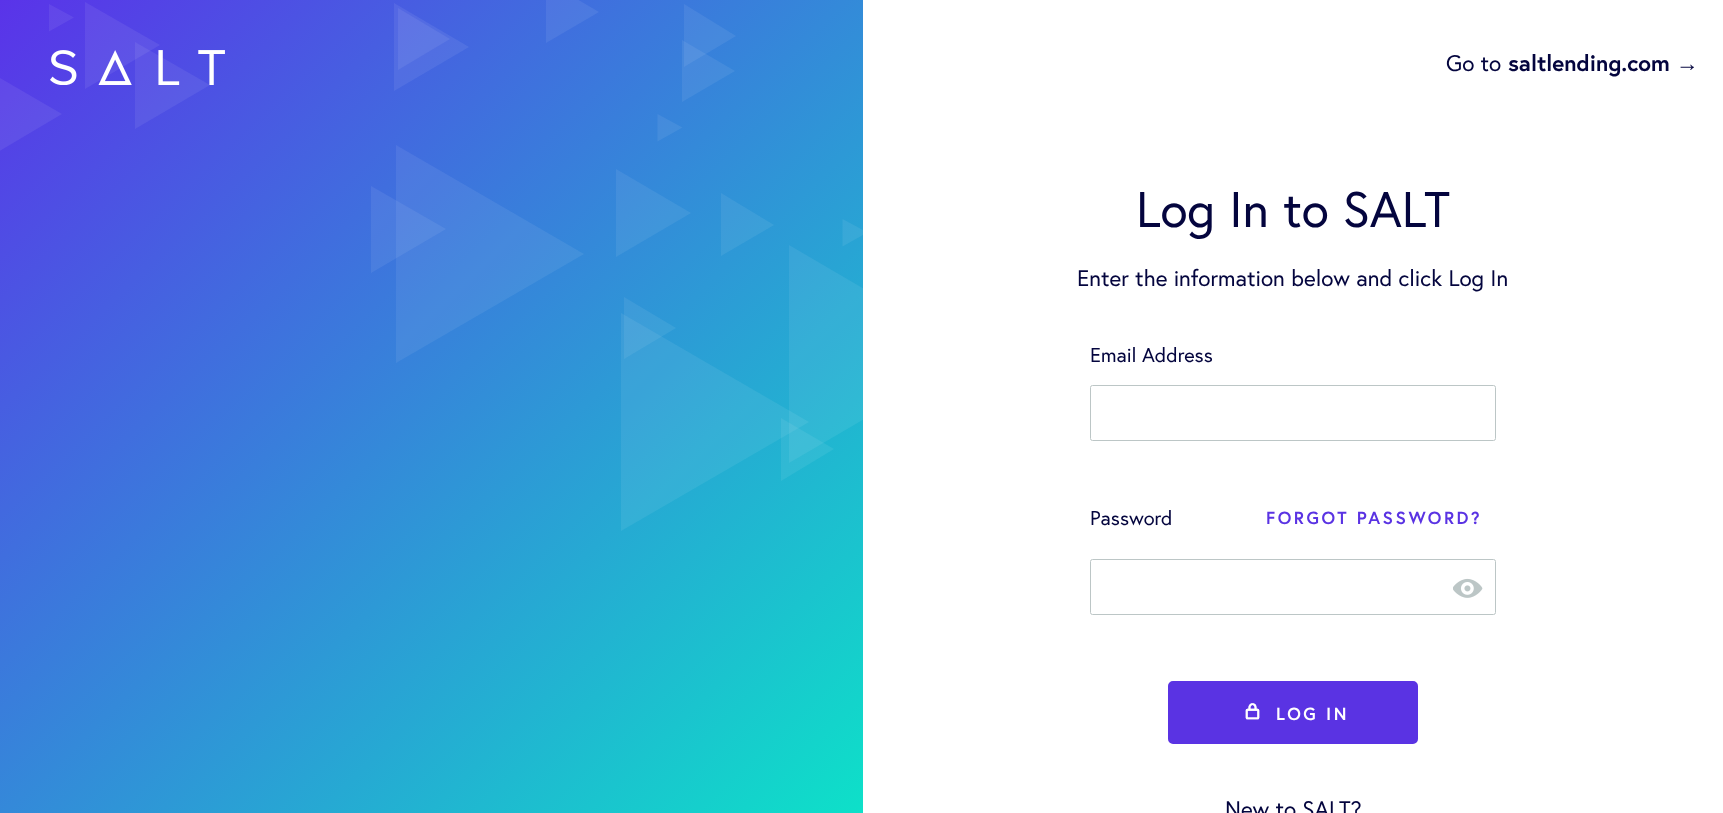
async function draw(canvas) {
  canvas.width = 1723
  canvas.height = 813
  const ctx = canvas.getContext('2d')
  ctx.miterLimit = 4
  ctx.fontKerning = 'normal'
  async function loadImage(src) {
    const img = new Image()
    img.src = src
    await img.decode()
    return img
  }
  let gradient

  ctx.fillStyle = '#fff'
  ctx.fillRect(0, 0, 1723, 813)
  gradient = ctx.createLinearGradient(915, 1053, -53, 51)
  gradient.addColorStop(0, '#00ffc3')
  gradient.addColorStop(1, '#5a33e9')
  ctx.fillStyle = gradient
  ctx.fillRect(0, 0, 863, 813)
  ctx.fillStyle = '#ffffff12'
  ctx.beginPath()
  ctx.moveTo(49, 31.5)
  ctx.lineTo(49, 4)
  ctx.lineTo(74, 17.5)
  ctx.closePath()
  ctx.fill()
  ctx.beginPath()
  ctx.moveTo(135, 129)
  ctx.lineTo(135, 42)
  ctx.lineTo(210, 85)
  ctx.closePath()
  ctx.fill()
  ctx.beginPath()
  ctx.moveTo(85, 89)
  ctx.lineTo(85, 2)
  ctx.lineTo(160, 45)
  ctx.closePath()
  ctx.fill()
  ctx.beginPath()
  ctx.moveTo(394, 91)
  ctx.lineTo(394, 3)
  ctx.lineTo(469, 47)
  ctx.closePath()
  ctx.fill()
  ctx.beginPath()
  ctx.moveTo(546, 43)
  ctx.lineTo(546, -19)
  ctx.lineTo(599, 12)
  ctx.closePath()
  ctx.fill()
  ctx.beginPath()
  ctx.moveTo(684, 67)
  ctx.lineTo(684, 4)
  ctx.lineTo(736, 36)
  ctx.closePath()
  ctx.fill()
  ctx.beginPath()
  ctx.moveTo(-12, 158)
  ctx.lineTo(-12, 71)
  ctx.lineTo(62, 114)
  ctx.closePath()
  ctx.fill()
  ctx.beginPath()
  ctx.moveTo(398, 70)
  ctx.lineTo(398, 8)
  ctx.lineTo(450, 39)
  ctx.closePath()
  ctx.fill()
  ctx.beginPath()
  ctx.moveTo(657.5, 141.5)
  ctx.lineTo(657.5, 114)
  ctx.lineTo(682.5, 127.5)
  ctx.closePath()
  ctx.fill()
  ctx.beginPath()
  ctx.moveTo(682, 102)
  ctx.lineTo(682, 40)
  ctx.lineTo(735, 71)
  ctx.closePath()
  ctx.fill()
  ctx.beginPath()
  ctx.moveTo(396, 363)
  ctx.lineTo(396, 145)
  ctx.lineTo(584, 254)
  ctx.closePath()
  ctx.fill()
  ctx.beginPath()
  ctx.moveTo(616, 257)
  ctx.lineTo(616, 169)
  ctx.lineTo(691, 213)
  ctx.closePath()
  ctx.fill()
  ctx.beginPath()
  ctx.moveTo(371, 273)
  ctx.lineTo(371, 186)
  ctx.lineTo(446, 229)
  ctx.closePath()
  ctx.fill()
  ctx.beginPath()
  ctx.moveTo(721, 256)
  ctx.lineTo(721, 193)
  ctx.lineTo(774, 225)
  ctx.closePath()
  ctx.fill()
  ctx.beginPath()
  ctx.moveTo(621, 531)
  ctx.lineTo(621, 313)
  ctx.lineTo(809, 422)
  ctx.closePath()
  ctx.fill()
  ctx.beginPath()
  ctx.moveTo(781, 481)
  ctx.lineTo(781, 418)
  ctx.lineTo(834, 449)
  ctx.closePath()
  ctx.fill()
  ctx.save()
  ctx.beginPath()
  ctx.rect(0, 0, 863, 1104)
  ctx.clip()
  ctx.beginPath()
  ctx.moveTo(789, 463)
  ctx.lineTo(789, 245)
  ctx.lineTo(976, 354)
  ctx.closePath()
  ctx.fill()
  ctx.beginPath()
  ctx.moveTo(842.5, 246.5)
  ctx.lineTo(842.5, 219)
  ctx.lineTo(867.5, 232.5)
  ctx.closePath()
  ctx.fill()
  ctx.restore()
  ctx.beginPath()
  ctx.moveTo(624, 359)
  ctx.lineTo(624, 297)
  ctx.lineTo(676, 328)
  ctx.closePath()
  ctx.fill()
  ctx.drawImage(await loadImage('image0.png'), 50, 50, 175, 35)
  ctx.font = '22.5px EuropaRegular'
  ctx.fillStyle = '#04053e'
  ctx.fillText('Go to', 1446, 71)
  ctx.font = 'bold 22.5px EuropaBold'
  ctx.fillText('saltlending.com', 1508, 71)
  ctx.font = 'bold 22.5px Liberation Sans'
  ctx.fillText('→', 1676, 71)
  ctx.font = '50px EuropaRegular'
  ctx.fillText('Log In to SALT', 1136, 227)
  ctx.font = '22.5px EuropaRegular'
  ctx.fillText('Enter the information below and click Log In', 1077, 286)
  ctx.font = '20px EuropaRegular'
  ctx.fillText('Email Address', 1090, 362)
  ctx.beginPath()
  ctx.roundRect(1090.5, 385.5, 405, 55, 2)
  ctx.strokeStyle = '#bcc6c6'
  ctx.stroke()
  ctx.fillText('Password', 1090, 525)
  ctx.letterSpacing = '2.5px'
  ctx.font = 'bold 17.5px EuropaBold'
  ctx.fillStyle = '#5a33e3'
  ctx.fillText('FORGOT PASSWORD?', 1266, 524)
  ctx.beginPath()
  ctx.roundRect(1090.5, 559.5, 405, 55, 2)
  ctx.stroke()
  ctx.drawImage(await loadImage('image1.png'), 1453, 578, 30, 20)
  ctx.beginPath()
  ctx.roundRect(1170, 683, 246, 59, 3)
  ctx.fill()
  ctx.strokeStyle = '#5a33e3'
  ctx.lineWidth = 4
  ctx.stroke()
  ctx.drawImage(await loadImage('image2.png'), 1245, 703, 15, 17)
  ctx.fillStyle = '#fff'
  ctx.fillText('LOG IN', 1276, 720)
  ctx.letterSpacing = '0px'
  ctx.font = '22.5px EuropaRegular'
  ctx.fillStyle = '#04053e'
  ctx.fillText('New to SALT?', 1225, 817)
}

draw(document.querySelector('canvas'))
